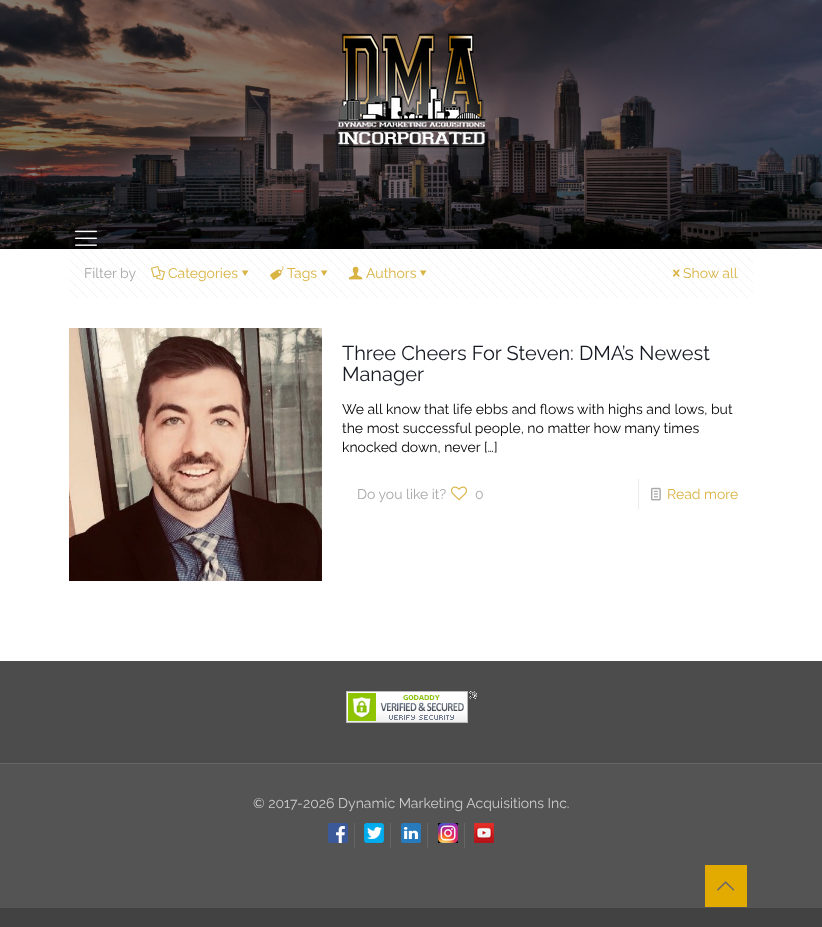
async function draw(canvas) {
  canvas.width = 822
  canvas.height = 927
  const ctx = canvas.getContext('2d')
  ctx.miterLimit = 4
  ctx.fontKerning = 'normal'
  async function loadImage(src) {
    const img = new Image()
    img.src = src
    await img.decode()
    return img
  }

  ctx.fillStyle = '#424242'
  ctx.fillRect(0, 0, 822, 927)
  ctx.fillStyle = '#fff'
  ctx.fillRect(0, 249, 822, 412)
  ctx.drawImage(await loadImage('image0.png'), 0, 0, 822, 249)
  ctx.drawImage(await loadImage('image1.png'), 312, 33, 192, 123)
  ctx.drawImage(await loadImage('image2.png'), 75, 230, 22, 16)
  ctx.drawImage(await loadImage('image3.png'), 69, 249, 684, 49)
  ctx.font = '14px Raleway'
  ctx.fillStyle = '#a8a8a8'
  ctx.fillText('Filter by', 84, 278)
  ctx.drawImage(await loadImage('image4.png'), 151, 266, 14, 15)
  ctx.fillStyle = '#d9b445'
  ctx.fillText('Categories', 168, 278)
  ctx.beginPath()
  ctx.moveTo(248.5, 270.5)
  ctx.lineTo(245, 276)
  ctx.lineTo(242, 270.5)
  ctx.closePath()
  ctx.fill()
  ctx.drawImage(await loadImage('image5.png'), 270, 266, 14, 14)
  ctx.fillText('Tags', 287, 278)
  ctx.beginPath()
  ctx.moveTo(327.5, 270.5)
  ctx.lineTo(324, 276)
  ctx.lineTo(321, 270.5)
  ctx.closePath()
  ctx.fill()
  ctx.drawImage(await loadImage('image6.png'), 349, 266, 14, 14)
  ctx.fillText('Authors', 366, 278)
  ctx.beginPath()
  ctx.moveTo(426.5, 270.5)
  ctx.lineTo(423, 276)
  ctx.lineTo(420, 270.5)
  ctx.closePath()
  ctx.fill()
  ctx.drawImage(await loadImage('image7.png'), 673, 269, 7, 8)
  ctx.fillText('Show all', 683, 278)
  ctx.drawImage(await loadImage('image8.png'), 69, 328, 253, 253)
  ctx.font = '20px Raleway'
  ctx.fillStyle = '#161922'
  ctx.fillText('Three Cheers For Steven: DMA’s Newest', 342, 360)
  ctx.fillText('Manager', 342, 381)
  ctx.font = '14px Raleway'
  ctx.fillStyle = '#000'
  ctx.fillText('We all know that life ebbs and flows with highs and lows, but', 342, 414)
  ctx.fillText('the most successful people, no matter how many times', 342, 433)
  ctx.fillText('knocked down, never', 342, 452)
  ctx.fillText('[…]', 484, 452)
  ctx.fillStyle = '#a8a8a8'
  ctx.fillText('Do you like it?', 357, 499)
  ctx.drawImage(await loadImage('image9.png'), 451, 486, 16, 15)
  ctx.fillText('0', 475, 499)
  ctx.fillStyle = '#ebebeb'
  ctx.fillRect(638, 479, 1, 30)
  ctx.drawImage(await loadImage('image10.png'), 651, 487, 10, 14)
  ctx.fillStyle = '#d9b445'
  ctx.fillText('Read more', 667, 499)
  ctx.fillStyle = '#545454'
  ctx.fillRect(0, 764, 822, 144)
  ctx.fillStyle = '#4c4c4c'
  ctx.fillRect(0, 661, 822, 102)
  ctx.drawImage(await loadImage('image11.png'), 346, 691, 131, 32)
  ctx.fillStyle = '#656565'
  ctx.fillRect(0, 763, 822, 1)
  ctx.fillStyle = '#ccc'
  ctx.fillText('© 2017-2026 Dynamic Marketing Acquisitions Inc.', 253, 808)
  ctx.fillStyle = '#656565'
  ctx.fillRect(354, 823, 1, 25)
  ctx.drawImage(await loadImage('image12.png'), 328, 823, 20, 20)
  ctx.fillRect(390, 823, 1, 25)
  ctx.drawImage(await loadImage('image13.png'), 364, 823, 20, 20)
  ctx.fillRect(427, 823, 1, 25)
  ctx.drawImage(await loadImage('image14.png'), 401, 823, 20, 20)
  ctx.fillRect(464, 823, 1, 25)
  ctx.drawImage(await loadImage('image15.png'), 438, 823, 20, 20)
  ctx.drawImage(await loadImage('image16.png'), 474, 823, 20, 20)
  ctx.fillStyle = '#e3aa00'
  ctx.fillRect(705, 865, 42, 42)
  ctx.drawImage(await loadImage('image17.png'), 717, 881, 18, 10)
}

draw(document.querySelector('canvas'))
